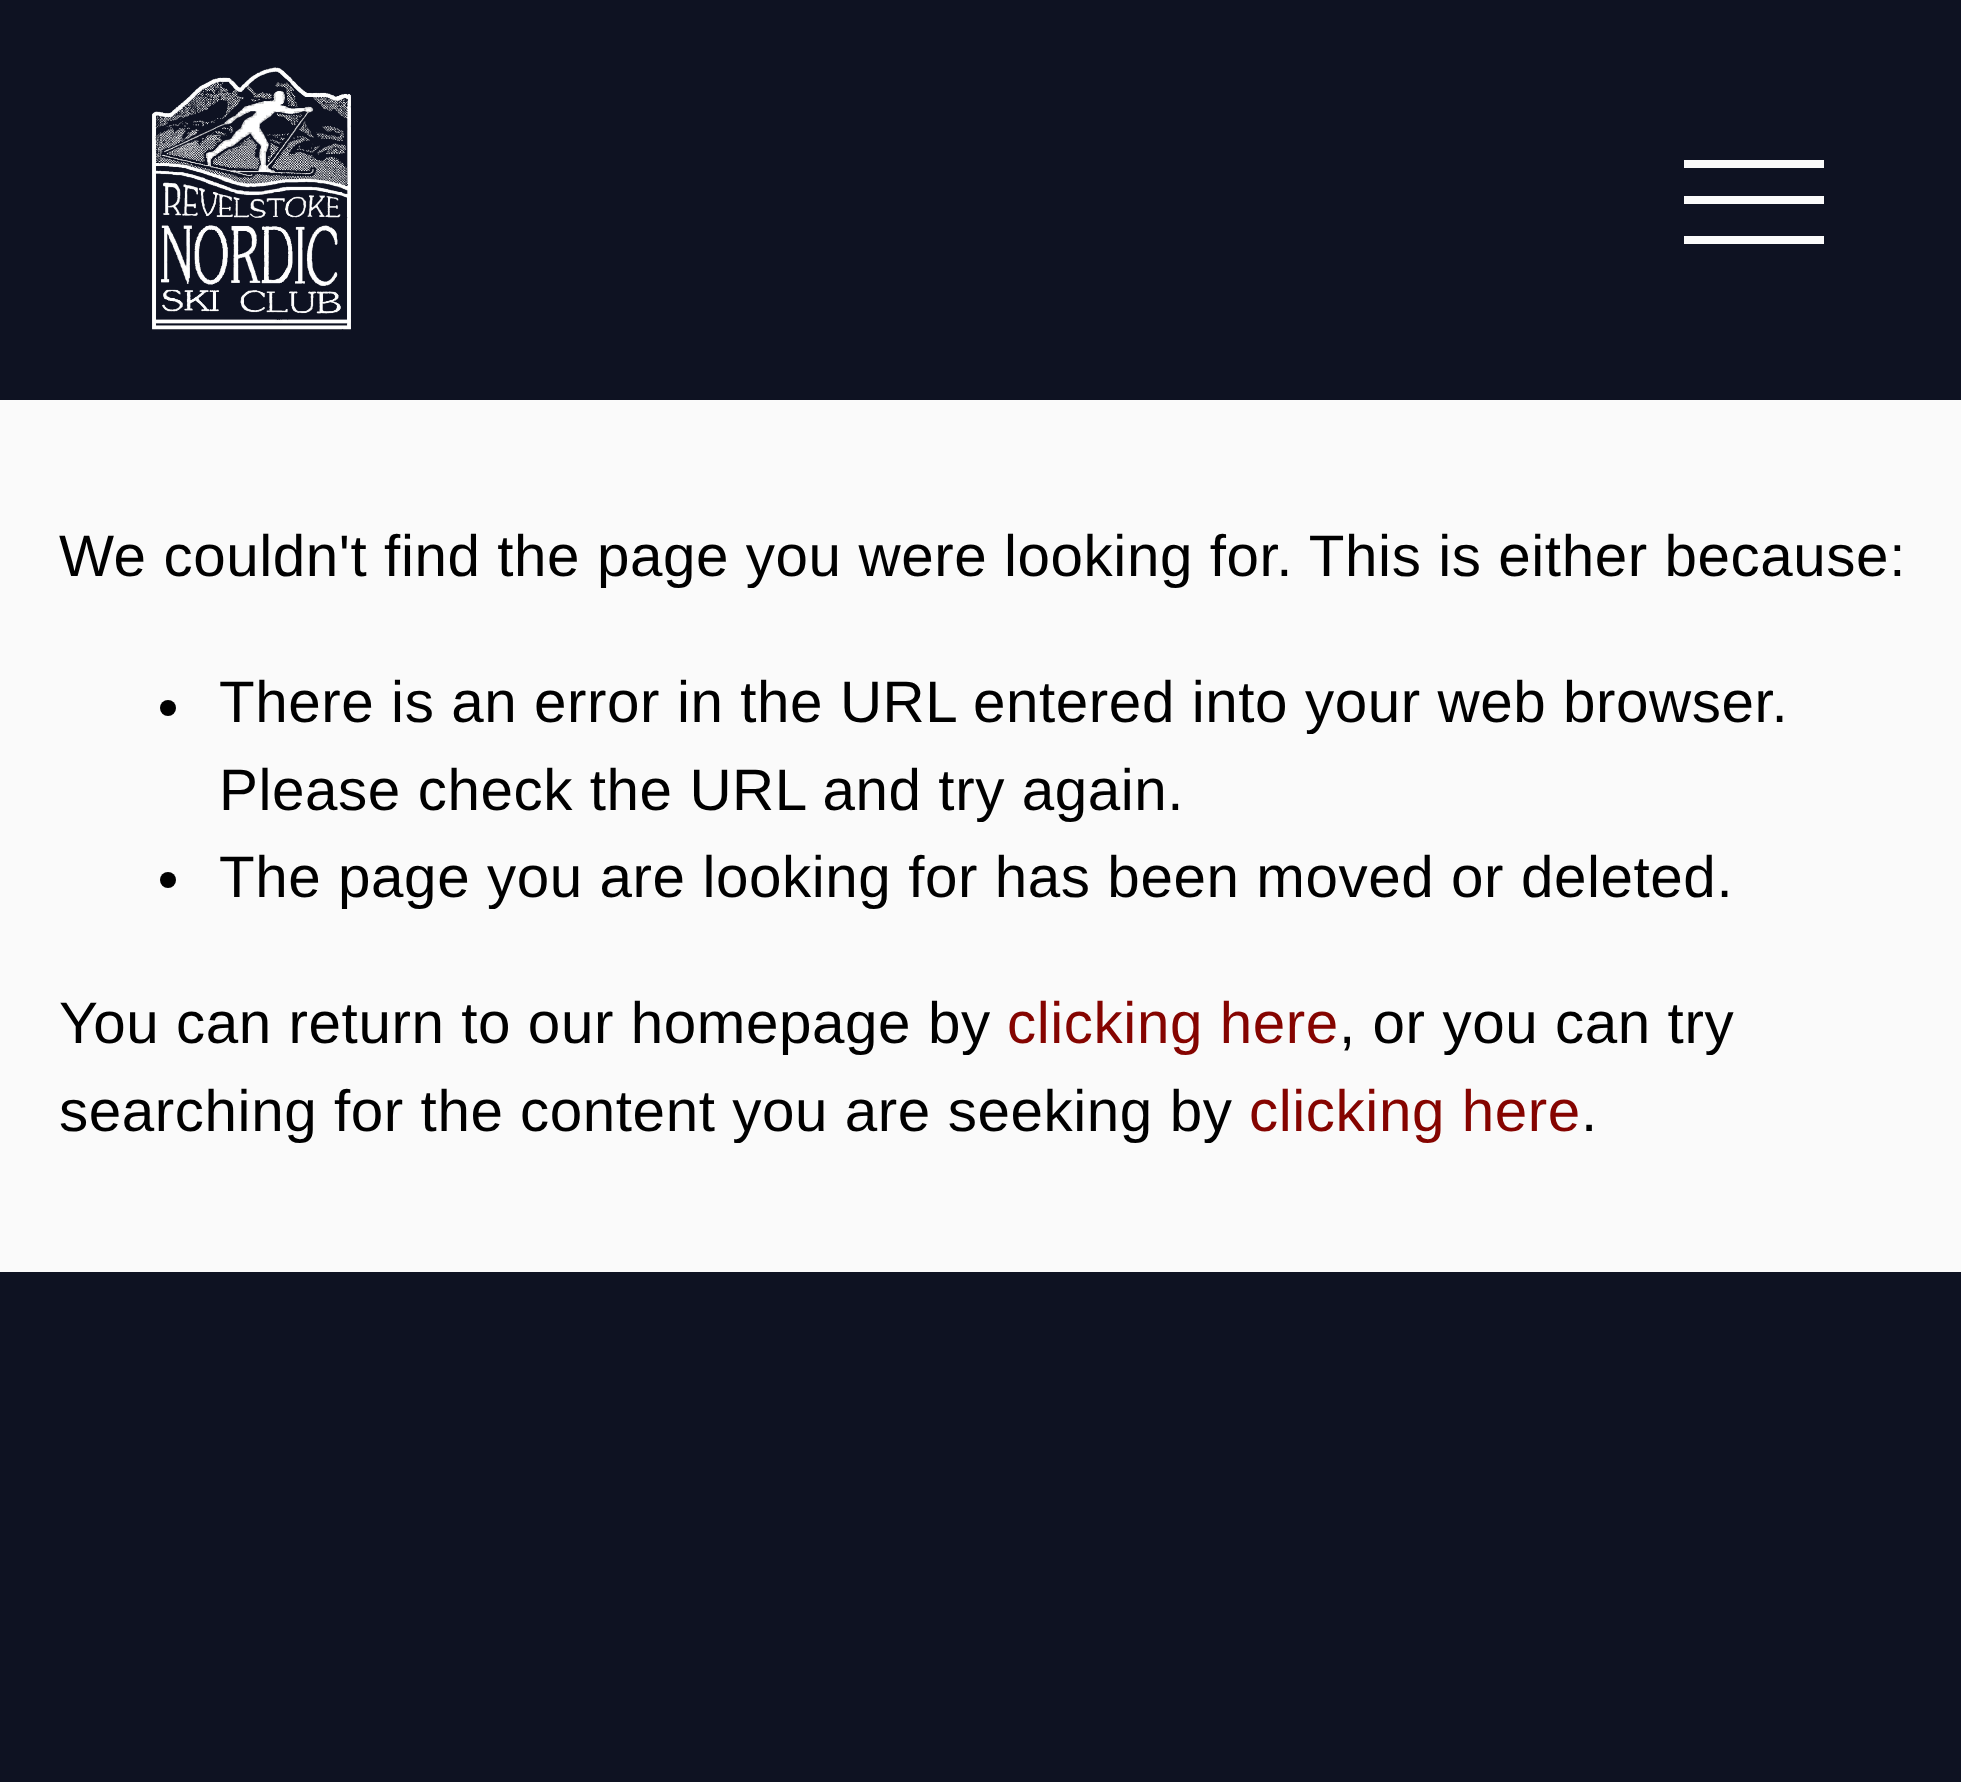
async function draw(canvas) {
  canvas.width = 1961
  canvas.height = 1782
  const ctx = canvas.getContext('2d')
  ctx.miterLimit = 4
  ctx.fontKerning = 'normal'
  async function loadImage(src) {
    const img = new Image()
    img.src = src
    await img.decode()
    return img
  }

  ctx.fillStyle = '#fafafa'
  ctx.fillRect(0, 0, 1961, 1782)
  ctx.fillStyle = '#0e1222'
  ctx.fillRect(0, 0, 1961, 400)
  ctx.drawImage(await loadImage('image0.png'), 152, 67, 199, 263)
  ctx.fillStyle = '#fafafa'
  ctx.fillRect(1684, 160, 140, 8)
  ctx.fillRect(1684, 196, 140, 8)
  ctx.fillRect(1684, 236, 140, 8)
  ctx.letterSpacing = '0.58px'
  ctx.font = '58.35px Liberation Sans'
  ctx.fillStyle = '#000'
  ctx.fillText('We couldn\'t find the page you were looking for. This is either because:', 59, 576)
  ctx.beginPath()
  ctx.arc(168, 708, 8, 0, 2 * Math.PI)
  ctx.fill()
  ctx.fillText('There is an error in the URL entered into your web browser.', 219, 722)
  ctx.fillText('Please check the URL and try again.', 219, 810)
  ctx.beginPath()
  ctx.arc(168, 880, 8, 0, 2 * Math.PI)
  ctx.fill()
  ctx.fillText('The page you are looking for has been moved or deleted.', 219, 897)
  ctx.fillText('You can return to our homepage by', 59, 1043)
  ctx.fillStyle = '#850400'
  ctx.fillText('clicking here', 1007, 1043)
  ctx.fillStyle = '#000'
  ctx.fillText(', or you can try', 1339, 1043)
  ctx.fillText('searching for the', 59, 1131)
  ctx.fillText('content you are seeking by', 520, 1131)
  ctx.fillStyle = '#850400'
  ctx.fillText('clicking here', 1249, 1131)
  ctx.fillStyle = '#000'
  ctx.fillText('.', 1581, 1131)
  ctx.fillStyle = '#0e1222'
  ctx.fillRect(0, 1272, 1961, 510)
}

draw(document.querySelector('canvas'))
